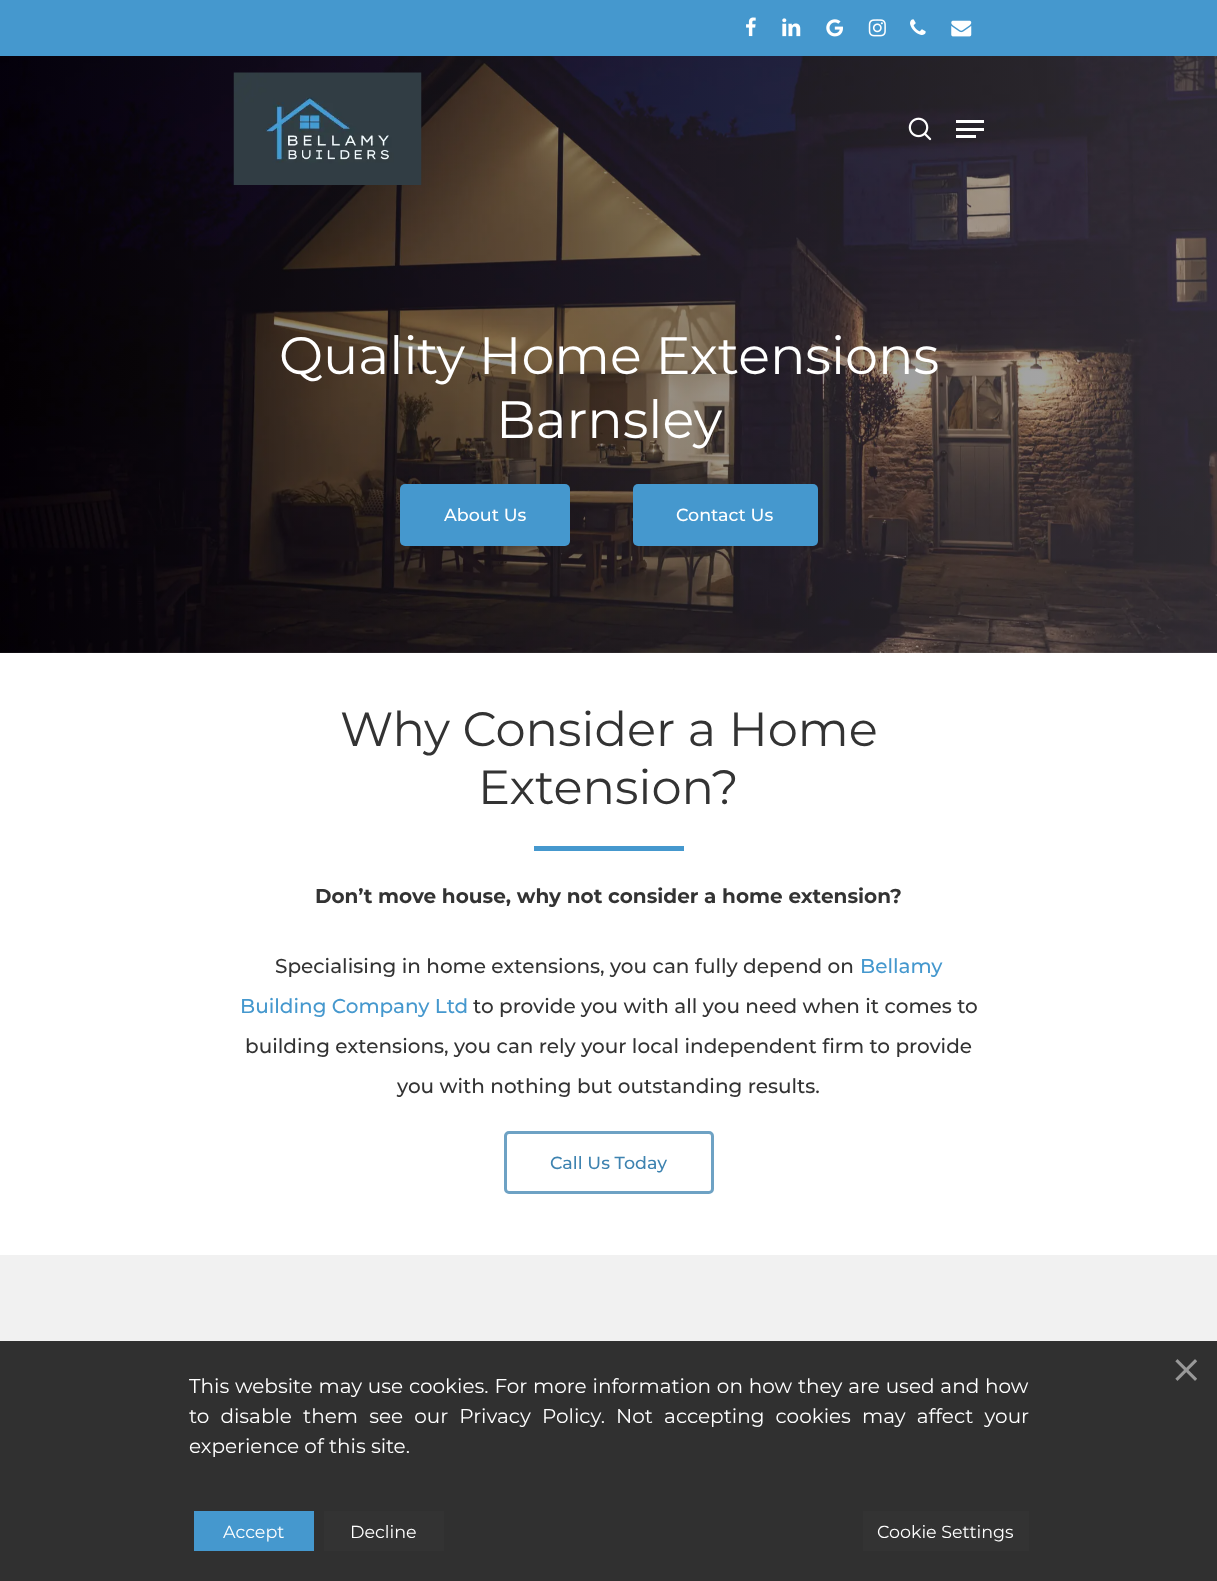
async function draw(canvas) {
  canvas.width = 1217
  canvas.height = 1581
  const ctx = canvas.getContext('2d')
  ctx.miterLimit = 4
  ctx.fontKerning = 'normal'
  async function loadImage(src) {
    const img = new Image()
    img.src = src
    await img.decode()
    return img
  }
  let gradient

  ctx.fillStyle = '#fff'
  ctx.fillRect(0, 0, 1217, 1581)
  ctx.fillStyle = '#4598ce'
  ctx.fillRect(0, 0, 1217, 56)
  ctx.drawImage(await loadImage('image0.png'), 746, 17, 10, 20)
  ctx.drawImage(await loadImage('image1.png'), 782, 18, 19, 19)
  ctx.drawImage(await loadImage('image2.png'), 826, 19, 17, 18)
  ctx.drawImage(await loadImage('image3.png'), 868, 19, 18, 18)
  ctx.drawImage(await loadImage('image4.png'), 910, 19, 16, 16)
  ctx.drawImage(await loadImage('image5.png'), 951, 20, 21, 17)
  ctx.drawImage(await loadImage('image8.png'), 0, 56, 1217, 597)
  gradient = ctx.createLinearGradient(0, 354, 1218, 354)
  gradient.addColorStop(0, '#00000080')
  gradient.addColorStop(1, '#55555580')
  ctx.fillStyle = gradient
  ctx.fillRect(0, 56, 1217, 597)
  ctx.drawImage(await loadImage('image6.png'), 233, 72, 189, 113)
  ctx.drawImage(await loadImage('image7.png'), 908, 117, 24, 24)
  ctx.fillStyle = '#fff'
  ctx.fillRect(956, 120, 28, 3)
  ctx.fillRect(956, 135, 20, 3)
  ctx.fillRect(956, 128, 28, 3)
  ctx.font = '52.5px Montserrat'
  ctx.fillText('Quality Home Extensions', 279, 374)
  ctx.fillText('Barnsley', 496, 438)
  ctx.fillStyle = '#4598ce'
  ctx.beginPath()
  ctx.roundRect(400, 484, 170, 62, 5)
  ctx.fill()
  ctx.font = '500 17.5px Montserrat'
  ctx.fillStyle = '#fff'
  ctx.fillText('About Us', 444, 521)
  ctx.fillStyle = '#4598ce'
  ctx.beginPath()
  ctx.roundRect(633, 484, 185, 62, 5)
  ctx.fill()
  ctx.fillStyle = '#fff'
  ctx.fillText('Contact Us', 676, 521)
  ctx.font = '48px Montserrat'
  ctx.fillStyle = '#333'
  ctx.fillText('Why Consider a Home', 340, 746)
  ctx.fillText('Extension?', 478, 804)
  ctx.fillStyle = '#4598ce'
  ctx.fillRect(534, 846, 150, 5)
  ctx.font = 'bold 20px Montserrat'
  ctx.fillStyle = '#333'
  ctx.fillText('Don’t move house, why not consider a home extension?', 315, 903)
  ctx.font = '500 20px Montserrat'
  ctx.fillText('Specialising in home extensions, you can fully depend on', 275, 973)
  ctx.fillStyle = '#4598ce'
  ctx.fillText('Bellamy', 860, 973)
  ctx.fillText('Building Company Ltd', 240, 1013)
  ctx.fillStyle = '#333'
  ctx.fillText('to provide you with all you need when it comes to', 473, 1013)
  ctx.fillText('building extensions, you can rely your local independent firm to provide', 245, 1053)
  ctx.fillText('you with nothing but outstanding results.', 397, 1093)
  ctx.beginPath()
  ctx.roundRect(505.5, 1132.5, 207, 60, 3.5)
  ctx.strokeStyle = '#6ea2c4'
  ctx.lineWidth = 3
  ctx.stroke()
  ctx.font = '500 17.5px Montserrat'
  ctx.fillStyle = '#3e83b0'
  ctx.fillText('Call Us Today', 550, 1169)
  ctx.fillStyle = '#f1f1f1'
  ctx.fillRect(0, 1255, 1217, 326)
  ctx.fillStyle = '#000000cc'
  ctx.fillRect(0, 1341, 1217, 240)
  ctx.drawImage(await loadImage('image9.png'), 1175, 1359, 22, 22)
  ctx.wordSpacing = '0.6px'
  ctx.font = '20px Montserrat'
  ctx.fillStyle = '#fff'
  ctx.fillText('This website may use cookies. For more information on how they are used and how', 189, 1393)
  ctx.wordSpacing = '5.9px'
  ctx.fillText('to disable them see our Privacy Policy. Not accepting cookies may affect your', 189, 1423)
  ctx.wordSpacing = '0px'
  ctx.fillText('experience of this site.', 189, 1453)
  ctx.fillStyle = '#4598ce'
  ctx.fillRect(194, 1511, 120, 40)
  ctx.font = '17.5px Montserrat'
  ctx.fillStyle = '#fff'
  ctx.fillText('Accept', 223, 1538)
  ctx.fillStyle = '#333'
  ctx.fillRect(324, 1511, 120, 40)
  ctx.fillStyle = '#fff'
  ctx.fillText('Decline', 350, 1538)
  ctx.fillStyle = '#333'
  ctx.fillRect(863, 1511, 166, 40)
  ctx.fillStyle = '#fff'
  ctx.fillText('Cookie Settings', 877, 1538)
}

draw(document.querySelector('canvas'))
